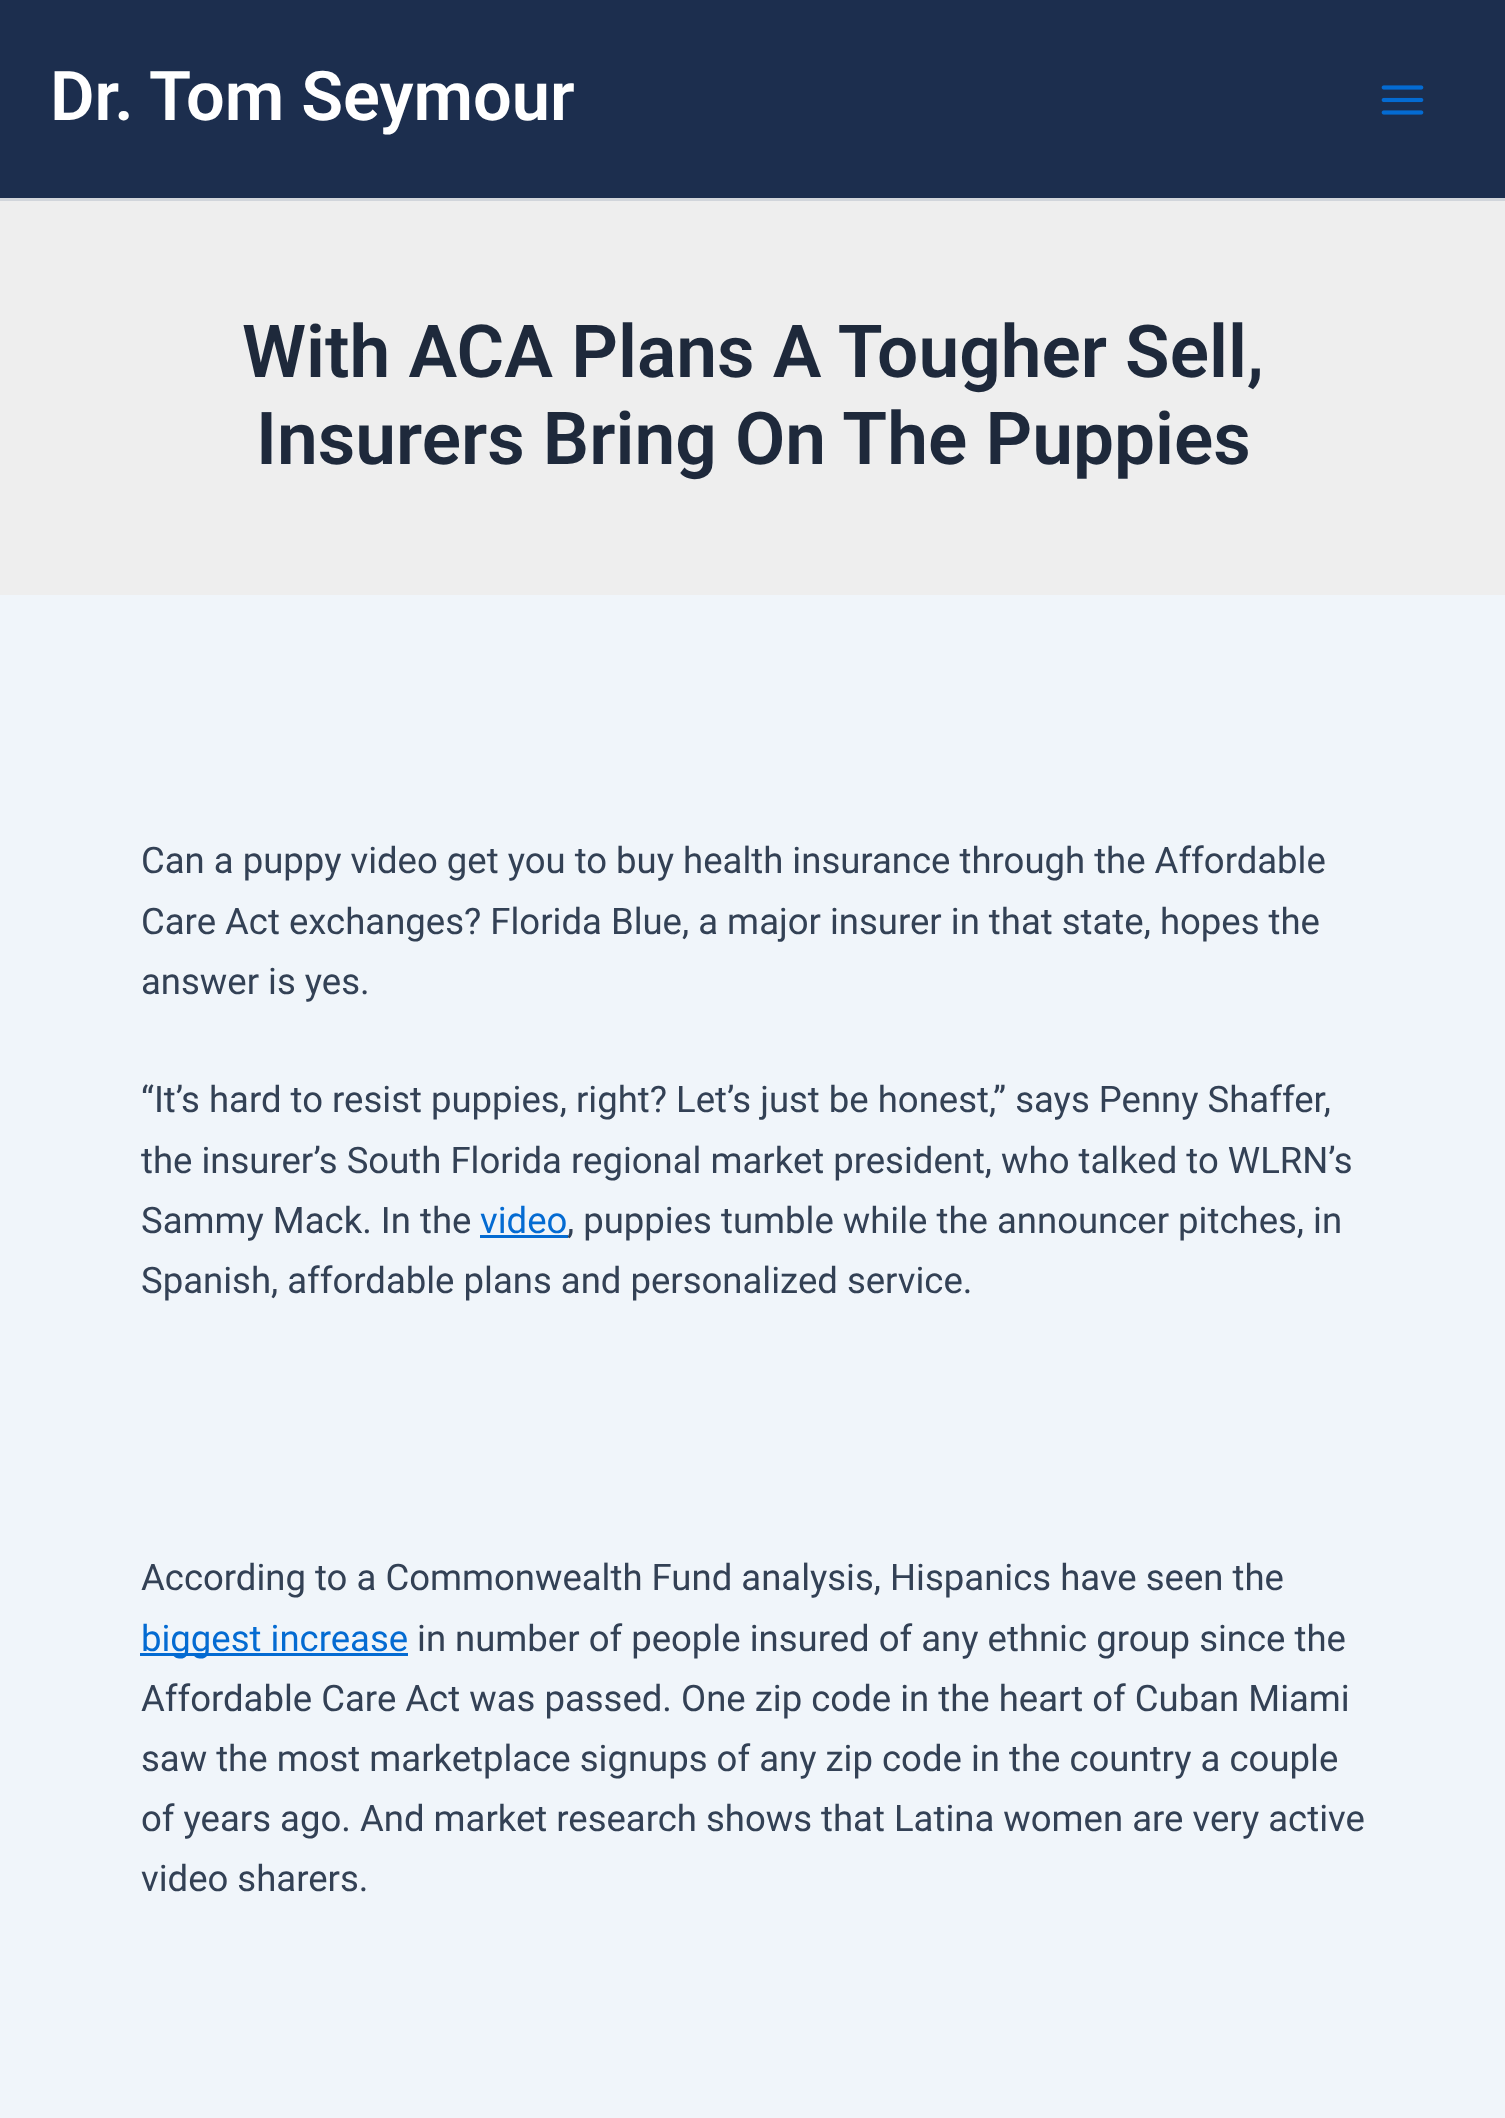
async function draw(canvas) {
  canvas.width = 1505
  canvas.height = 2118
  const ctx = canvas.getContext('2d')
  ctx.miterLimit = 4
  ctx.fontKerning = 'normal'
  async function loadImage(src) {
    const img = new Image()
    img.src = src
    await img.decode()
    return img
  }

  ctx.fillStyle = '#f0f5fa'
  ctx.fillRect(0, 0, 1505, 2118)
  ctx.fillStyle = '#1c2e4e'
  ctx.fillRect(0, 0, 1505, 198)
  ctx.fillStyle = '#d1d5db'
  ctx.fillRect(0, 198, 1505, 3)
  ctx.font = '600 68.5px Roboto'
  ctx.fillStyle = '#fff'
  ctx.fillText('Dr. Tom Seymour', 50, 120)
  ctx.drawImage(await loadImage('image0.png'), 1381, 85, 43, 30)
  ctx.fillStyle = '#eee'
  ctx.fillRect(0, 201, 1505, 394)
  ctx.font = '600 73px Roboto'
  ctx.fillStyle = '#1e293b'
  ctx.fillText('With ACA Plans A Tougher Sell,', 242, 377)
  ctx.fillText('Insurers Bring On The Puppies', 256, 464)
  ctx.font = '36.5px Roboto'
  ctx.fillStyle = '#334155'
  ctx.fillText('Can a puppy video get you to buy health insurance through the Affordable', 141, 873)
  ctx.fillText('Care Act exchanges? Florida Blue, a major insurer in that state, hopes the', 141, 934)
  ctx.fillText('answer is yes.', 141, 994)
  ctx.fillText('“It’s hard to resist puppies, right? Let’s just be honest,” says Penny Shaffer,', 141, 1112)
  ctx.fillText('the insurer’s South Florida regional market president, who talked to WLRN’s', 141, 1173)
  ctx.fillText('Sammy Mack. In the', 141, 1233)
  ctx.fillStyle = '#046bd2'
  ctx.fillText('video', 480, 1233)
  ctx.fillRect(480, 1235, 88, 3)
  ctx.fillStyle = '#334155'
  ctx.fillText(', puppies tumble while the announcer pitches, in', 567, 1233)
  ctx.fillText('Spanish, affordable plans and personalized service.', 141, 1293)
  ctx.fillText('According to a Commonwealth Fund analysis, Hispanics have seen the', 141, 1590)
  ctx.fillStyle = '#046bd2'
  ctx.fillRect(140, 1653, 268, 3)
  ctx.fillText('biggest increase', 141, 1651)
  ctx.fillStyle = '#334155'
  ctx.fillText('in number of people insured of any ethnic group since the', 417, 1651)
  ctx.fillText('Affordable Care Act was passed. One zip code in the heart of Cuban Miami', 141, 1711)
  ctx.fillText('saw the most marketplace signups of any zip code in the country a couple', 141, 1771)
  ctx.fillText('of years ago. And market research shows that Latina women are very active', 141, 1831)
  ctx.fillText('video sharers.', 141, 1891)
}

draw(document.querySelector('canvas'))
